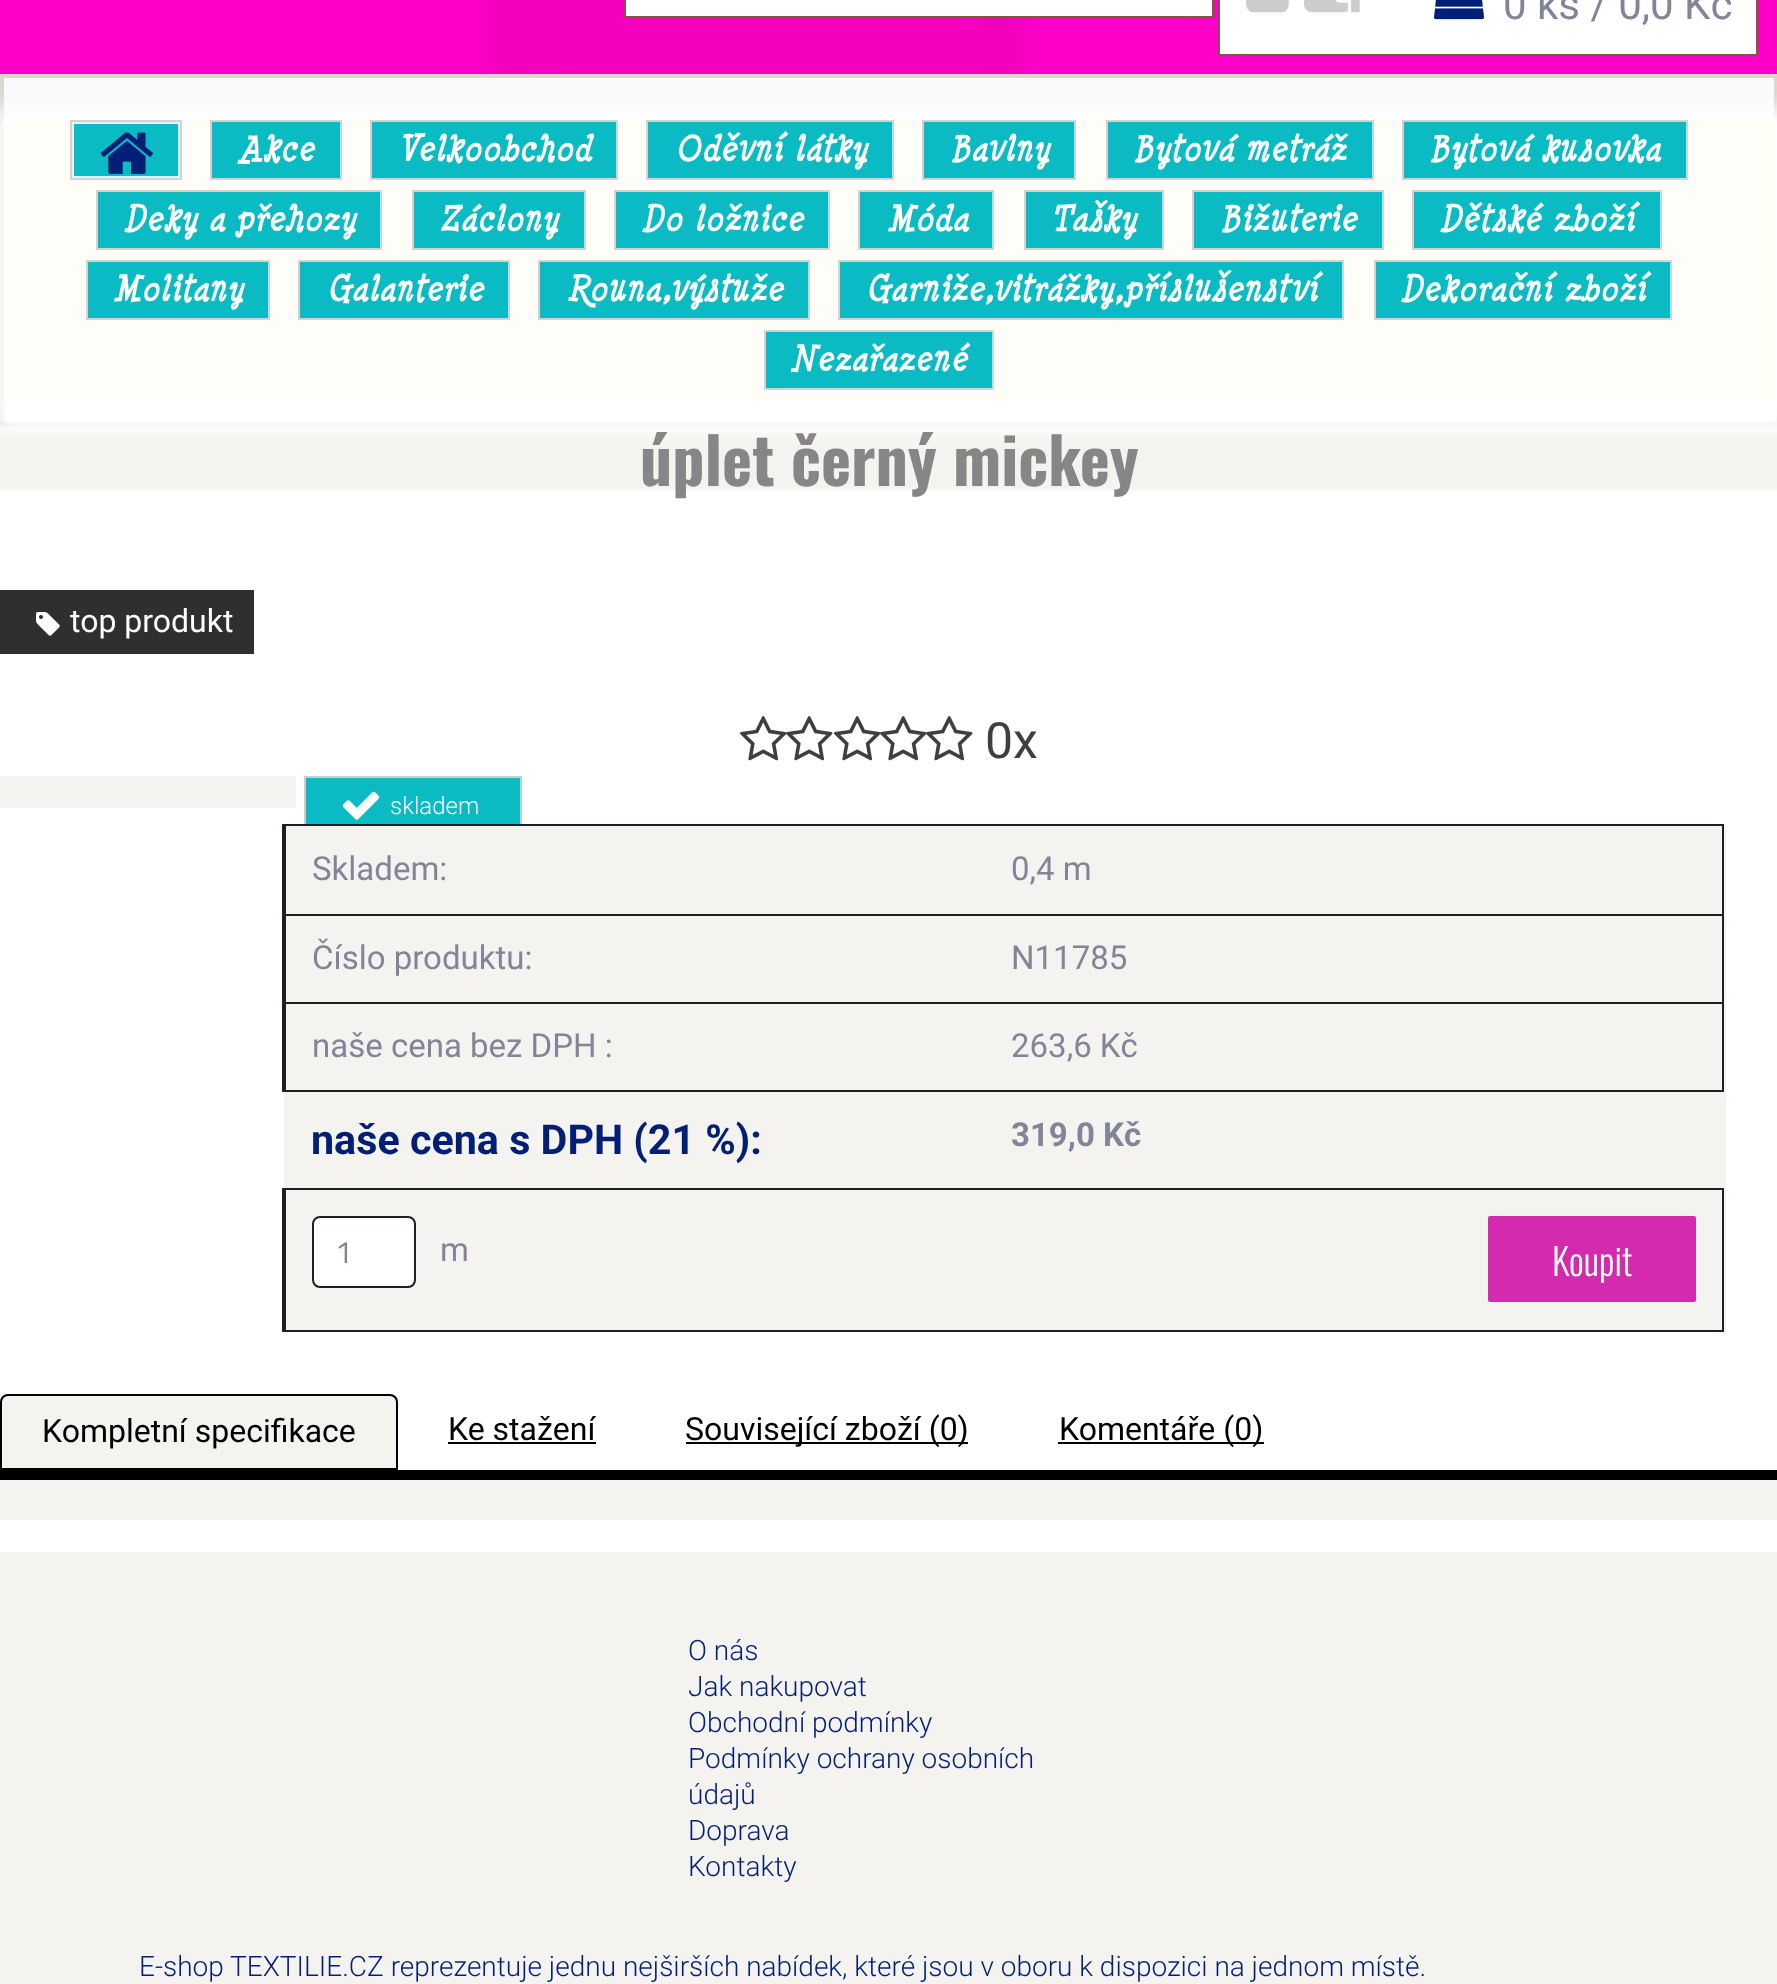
async function draw(canvas) {
  canvas.width = 1777
  canvas.height = 1984
  const ctx = canvas.getContext('2d')
  ctx.miterLimit = 4
  ctx.fontKerning = 'normal'
  async function loadImage(src) {
    const img = new Image()
    img.src = src
    await img.decode()
    return img
  }

  ctx.fillStyle = '#fff'
  ctx.fillRect(0, 0, 1777, 1984)
  ctx.fillStyle = '#ff00c8'
  ctx.fillRect(0, 0, 1777, 74)
  ctx.drawImage(await loadImage('image0.png'), 483, 0, 548, 74)
  ctx.fillStyle = '#fff'
  ctx.beginPath()
  ctx.rect(625, -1, 588, 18)
  ctx.fill()
  ctx.strokeStyle = '#795b35'
  ctx.lineWidth = 2
  ctx.stroke()
  ctx.beginPath()
  ctx.rect(1219, -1, 538, 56)
  ctx.fill()
  ctx.stroke()
  ctx.drawImage(await loadImage('image1.png'), 1246, 0, 43, 13)
  ctx.drawImage(await loadImage('image2.png'), 1304, 0, 56, 13)
  ctx.drawImage(await loadImage('image3.png'), 1434, 0, 50, 20)
  ctx.font = '42px Roboto'
  ctx.fillStyle = '#808697'
  ctx.fillText('0 ks / 0,0 Kč', 1503, 19)
  ctx.fillStyle = '#f9f9fa'
  ctx.beginPath()
  ctx.rect(2, 76, 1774, 348)
  ctx.fill()
  ctx.strokeStyle = '#dad7d0'
  ctx.lineWidth = 4
  ctx.stroke()
  ctx.fillStyle = '#f5f3f0'
  ctx.fillRect(0, 426, 1777, 64)
  ctx.fillStyle = '#fff'
  ctx.filter = 'blur(10px)'
  ctx.beginPath()
  ctx.rect(-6, 108, 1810, 324)
  ctx.fill()
  ctx.filter = 'none'
  ctx.fillStyle = '#fffdf7'
  ctx.fillRect(6, 120, 1766, 280)
  ctx.strokeStyle = '#d3d3d3'
  ctx.lineWidth = 2
  ctx.strokeRect(71, 121, 110, 58)
  ctx.fillStyle = '#0abbc3'
  ctx.beginPath()
  ctx.rect(73, 123, 106, 54)
  ctx.fill()
  ctx.strokeStyle = '#e0f8fa'
  ctx.stroke()
  ctx.drawImage(await loadImage('image4.png'), 100, 132, 53, 42)
  ctx.strokeStyle = '#d3d3d3'
  ctx.strokeRect(211, 121, 130, 58)
  ctx.fillRect(212, 122, 128, 56)
  ctx.font = 'italic bold 40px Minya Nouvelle'
  ctx.fillStyle = '#fff'
  ctx.fillText('Akce', 237, 160)
  ctx.strokeRect(371, 121, 246, 58)
  ctx.fillStyle = '#0abbc3'
  ctx.fillRect(372, 122, 244, 56)
  ctx.fillStyle = '#fff'
  ctx.fillText('Velkoobchod', 397, 160)
  ctx.strokeRect(647, 121, 246, 58)
  ctx.fillStyle = '#0abbc3'
  ctx.fillRect(648, 122, 244, 56)
  ctx.fillStyle = '#fff'
  ctx.fillText('Oděvní látky', 674, 160)
  ctx.strokeRect(923, 121, 152, 58)
  ctx.fillStyle = '#0abbc3'
  ctx.fillRect(924, 122, 150, 56)
  ctx.fillStyle = '#fff'
  ctx.fillText('Bavlny', 949, 160)
  ctx.strokeRect(1107, 121, 266, 58)
  ctx.fillStyle = '#0abbc3'
  ctx.fillRect(1108, 122, 264, 56)
  ctx.fillStyle = '#fff'
  ctx.fillText('Bytová metráž', 1132, 160)
  ctx.strokeRect(1403, 121, 284, 58)
  ctx.fillStyle = '#0abbc3'
  ctx.fillRect(1404, 122, 282, 56)
  ctx.fillStyle = '#fff'
  ctx.fillText('Bytová kusovka', 1428, 160)
  ctx.strokeRect(97, 191, 284, 58)
  ctx.fillStyle = '#0abbc3'
  ctx.fillRect(98, 192, 282, 56)
  ctx.fillStyle = '#fff'
  ctx.fillText('Deky a přehozy', 123, 230)
  ctx.strokeRect(413, 191, 172, 58)
  ctx.fillStyle = '#0abbc3'
  ctx.fillRect(414, 192, 170, 56)
  ctx.fillStyle = '#fff'
  ctx.fillText('Záclony', 438, 230)
  ctx.strokeRect(615, 191, 214, 58)
  ctx.fillStyle = '#0abbc3'
  ctx.fillRect(616, 192, 212, 56)
  ctx.fillStyle = '#fff'
  ctx.fillText('Do ložnice', 641, 230)
  ctx.strokeRect(859, 191, 134, 58)
  ctx.fillStyle = '#0abbc3'
  ctx.fillRect(860, 192, 132, 56)
  ctx.fillStyle = '#fff'
  ctx.fillText('Móda', 886, 230)
  ctx.strokeRect(1025, 191, 138, 58)
  ctx.fillStyle = '#0abbc3'
  ctx.fillRect(1026, 192, 136, 56)
  ctx.fillStyle = '#fff'
  ctx.fillText('Tašky', 1050, 230)
  ctx.strokeRect(1193, 191, 190, 58)
  ctx.fillStyle = '#0abbc3'
  ctx.fillRect(1194, 192, 188, 56)
  ctx.fillStyle = '#fff'
  ctx.fillText('Bižuterie', 1219, 230)
  ctx.strokeRect(1413, 191, 248, 58)
  ctx.fillStyle = '#0abbc3'
  ctx.fillRect(1414, 192, 246, 56)
  ctx.fillStyle = '#fff'
  ctx.fillText('Dětské zboží', 1439, 230)
  ctx.strokeRect(87, 261, 182, 58)
  ctx.fillStyle = '#0abbc3'
  ctx.fillRect(88, 262, 180, 56)
  ctx.fillStyle = '#fff'
  ctx.fillText('Molitany', 112, 300)
  ctx.strokeRect(299, 261, 210, 58)
  ctx.fillStyle = '#0abbc3'
  ctx.fillRect(300, 262, 208, 56)
  ctx.fillStyle = '#fff'
  ctx.fillText('Galanterie', 326, 300)
  ctx.strokeRect(539, 261, 270, 58)
  ctx.fillStyle = '#0abbc3'
  ctx.fillRect(540, 262, 268, 56)
  ctx.fillStyle = '#fff'
  ctx.fillText('Rouna,výstuže', 566, 300)
  ctx.strokeRect(839, 261, 504, 58)
  ctx.fillStyle = '#0abbc3'
  ctx.fillRect(840, 262, 502, 56)
  ctx.fillStyle = '#fff'
  ctx.fillText('Garniže,vitrážky,příslušenství', 865, 300)
  ctx.strokeRect(1375, 261, 296, 58)
  ctx.fillStyle = '#0abbc3'
  ctx.fillRect(1376, 262, 294, 56)
  ctx.fillStyle = '#fff'
  ctx.fillText('Dekorační zboží', 1400, 300)
  ctx.strokeRect(765, 331, 228, 58)
  ctx.fillStyle = '#0abbc3'
  ctx.fillRect(766, 332, 226, 56)
  ctx.fillStyle = '#fff'
  ctx.fillText('Nezařazené', 790, 370)
  ctx.font = 'bold 64px Oswald'
  ctx.fillStyle = '#868686'
  ctx.fillText('úplet černý mickey', 640, 486)
  ctx.fillStyle = '#302e2f'
  ctx.fillRect(0, 590, 254, 64)
  ctx.drawImage(await loadImage('image5.png'), 36, 612, 24, 24)
  ctx.font = '32px Roboto'
  ctx.fillStyle = '#fff'
  ctx.fillText('top produkt', 70, 632)
  ctx.drawImage(await loadImage('image6.png'), 740, 716, 47, 45)
  ctx.drawImage(await loadImage('image7.png'), 786, 716, 47, 45)
  ctx.drawImage(await loadImage('image6.png'), 834, 716, 47, 45)
  ctx.drawImage(await loadImage('image7.png'), 880, 716, 47, 45)
  ctx.drawImage(await loadImage('image7.png'), 926, 716, 47, 45)
  ctx.font = '50px Roboto'
  ctx.fillStyle = '#3f3f3f'
  ctx.fillText('0x', 985, 758)
  ctx.fillStyle = '#f5f3f0'
  ctx.fillRect(0, 776, 296, 32)
  ctx.fillStyle = '#0abbc3'
  ctx.fillRect(306, 778, 214, 46)
  ctx.strokeStyle = '#ccc'
  ctx.strokeRect(305, 777, 216, 54)
  ctx.drawImage(await loadImage('image8.png'), 342, 791, 38, 29)
  ctx.font = '300 24px Roboto'
  ctx.fillStyle = '#fff'
  ctx.fillText('skladem', 390, 814)
  ctx.fillStyle = '#f5f3f0'
  ctx.fillRect(284, 824, 1442, 508)
  ctx.fillStyle = '#1d2127'
  ctx.fillRect(282, 824, 1442, 2)
  ctx.fillRect(282, 914, 1442, 2)
  ctx.fillRect(282, 1002, 1442, 2)
  ctx.fillRect(1722, 1002, 2, 90)
  ctx.fillRect(1722, 914, 2, 90)
  ctx.fillRect(1722, 824, 2, 92)
  ctx.fillRect(282, 1090, 1442, 2)
  ctx.fillRect(282, 1002, 4, 90)
  ctx.fillRect(282, 914, 4, 90)
  ctx.fillRect(282, 824, 4, 92)
  ctx.font = '33px Roboto'
  ctx.fillStyle = '#808697'
  ctx.fillText('Skladem:', 312, 880)
  ctx.fillText('0,4 m', 1011, 880)
  ctx.fillText('Číslo produktu:', 312, 969)
  ctx.fillText('N11785', 1011, 969)
  ctx.fillText('naše cena bez DPH :', 312, 1057)
  ctx.fillText('263,6 Kč', 1011, 1057)
  ctx.font = 'bold 41.25px Roboto'
  ctx.fillStyle = '#001f75'
  ctx.fillText('naše cena s DPH (21 %):', 311, 1154)
  ctx.font = 'bold 33px Roboto'
  ctx.fillStyle = '#808697'
  ctx.fillText('319,0 Kč', 1011, 1146)
  ctx.fillStyle = '#1d2127'
  ctx.fillRect(282, 1188, 1442, 2)
  ctx.fillRect(1722, 1188, 2, 144)
  ctx.fillRect(282, 1330, 1442, 2)
  ctx.fillRect(282, 1188, 4, 144)
  ctx.fillStyle = '#fff'
  ctx.beginPath()
  ctx.roundRect(313, 1217, 102, 70, 7)
  ctx.fill()
  ctx.strokeStyle = '#1d2127'
  ctx.stroke()
  ctx.font = '31px Titillium Web'
  ctx.fillStyle = '#808697'
  ctx.fillText('1', 335, 1263)
  ctx.font = '33px Roboto'
  ctx.fillText('m', 440, 1261)
  ctx.fillStyle = '#d42aaf'
  ctx.beginPath()
  ctx.roundRect(1488, 1216, 208, 86, 2)
  ctx.fill()
  ctx.font = '300 37px Oswald'
  ctx.fillStyle = '#fff'
  ctx.fillText('Koupit', 1552, 1276)
  ctx.fillStyle = '#000'
  ctx.fillRect(0, 1470, 1777, 10)
  ctx.fillStyle = '#f5f3f0'
  ctx.beginPath()
  ctx.roundRect(1, 1395, 396, 74, [7, 7, 0, 0])
  ctx.fill()
  ctx.strokeStyle = '#000'
  ctx.stroke()
  ctx.font = '32px Roboto'
  ctx.fillStyle = '#000'
  ctx.fillText('Kompletní specifikace', 42, 1442)
  ctx.fillText('Ke stažení', 448, 1440)
  ctx.fillRect(448, 1442, 148, 2)
  ctx.fillRect(686, 1442, 282, 2)
  ctx.fillText('Související zboží (0)', 685, 1440)
  ctx.fillRect(1058, 1442, 206, 2)
  ctx.fillText('Komentáře (0)', 1059, 1440)
  ctx.fillStyle = '#f5f3f0'
  ctx.fillRect(0, 1480, 1777, 40)
  ctx.fillRect(0, 1552, 1777, 432)
  ctx.font = '300 28px Roboto'
  ctx.fillStyle = '#001f75'
  ctx.fillText('O nás', 688, 1660)
  ctx.fillText('Jak nakupovat', 688, 1696)
  ctx.fillText('Obchodní podmínky', 688, 1732)
  ctx.fillText('Podmínky ochrany osobních', 688, 1768)
  ctx.fillText('údajů', 688, 1804)
  ctx.fillText('Doprava', 688, 1840)
  ctx.fillText('Kontakty', 688, 1876)
  ctx.fillText('E-shop TEXTILIE.CZ reprezentuje jednu nejširších nabídek, které jsou v oboru k dispozici na jednom místě.', 139, 1976)
}

draw(document.querySelector('canvas'))
